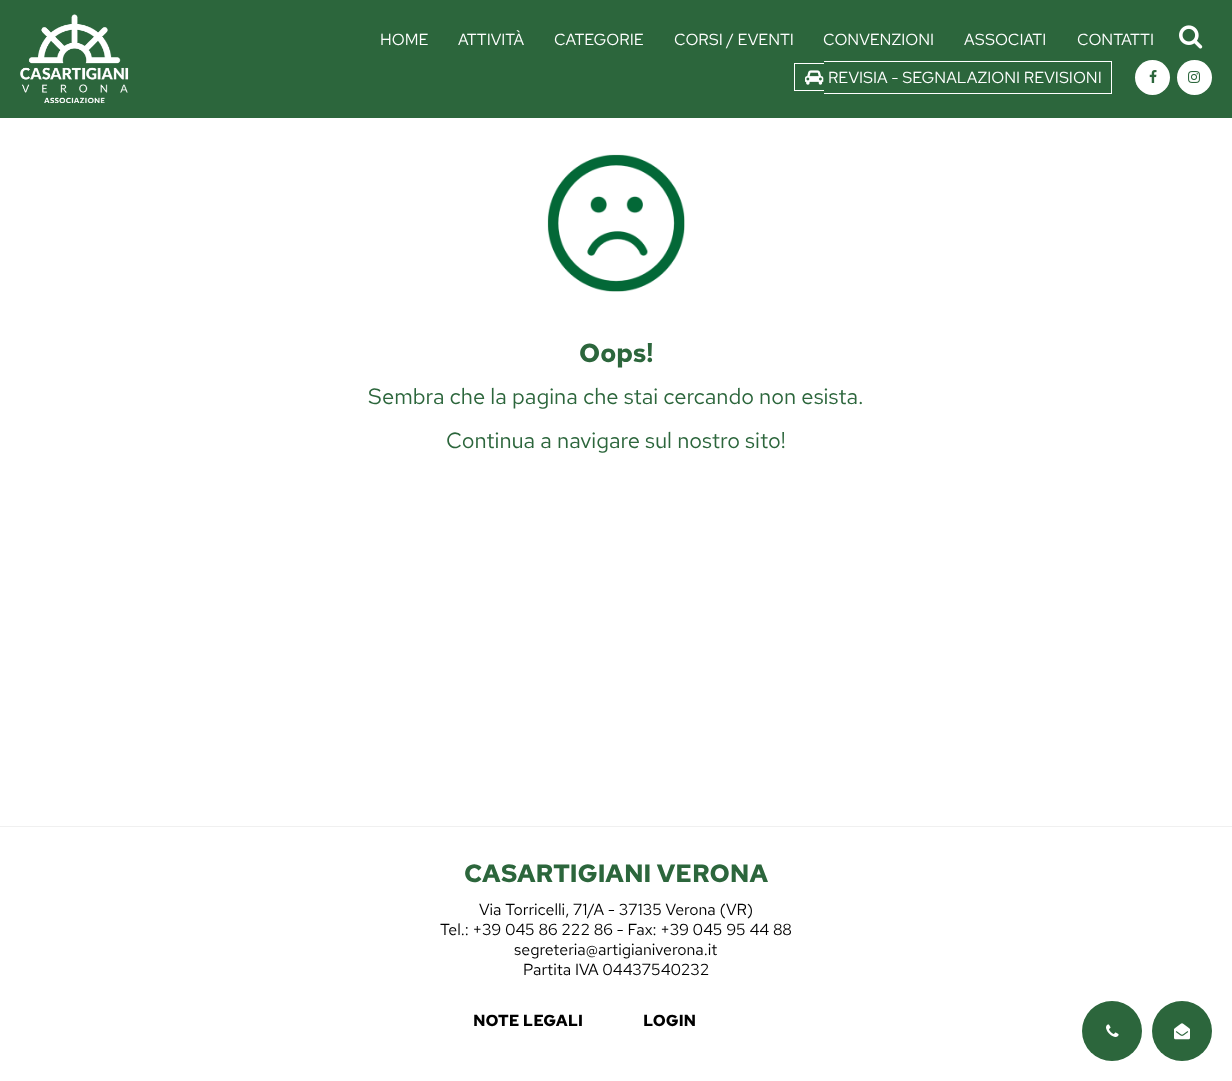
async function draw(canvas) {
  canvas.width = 1232
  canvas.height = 1081
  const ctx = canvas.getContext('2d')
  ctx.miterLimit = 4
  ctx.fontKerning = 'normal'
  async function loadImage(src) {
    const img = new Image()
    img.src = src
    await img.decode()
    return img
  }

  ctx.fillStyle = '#fff'
  ctx.fillRect(0, 0, 1232, 1081)
  ctx.fillStyle = '#2c663c'
  ctx.fillRect(0, 0, 1232, 118)
  ctx.drawImage(await loadImage('image0.png'), 20, 14, 109, 89)
  ctx.font = '16px Red Hat Text'
  ctx.fillStyle = '#fff'
  ctx.fillText('HOME', 380, 45)
  ctx.fillText('ATTIVITÀ', 458, 45)
  ctx.fillText('CATEGORIE', 554, 45)
  ctx.fillText('CORSI / EVENTI', 674, 45)
  ctx.fillText('CONVENZIONI', 823, 45)
  ctx.fillText('ASSOCIATI', 964, 45)
  ctx.fillText('CONTATTI', 1077, 45)
  ctx.drawImage(await loadImage('image1.png'), 1179, 25, 24, 24)
  ctx.fillRect(794, 63, 30, 1)
  ctx.fillRect(794, 90, 30, 1)
  ctx.fillRect(794, 63, 1, 28)
  ctx.fillRect(824, 61, 288, 1)
  ctx.fillRect(1111, 61, 1, 33)
  ctx.fillRect(824, 93, 288, 1)
  ctx.drawImage(await loadImage('image2.png'), 805, 70, 19, 15)
  ctx.fillText('REVISIA - SEGNALAZIONI REVISIONI', 828, 83)
  ctx.beginPath()
  ctx.arc(1152.5, 77.5, 17.5, 0, 2 * Math.PI)
  ctx.fill()
  ctx.drawImage(await loadImage('image3.png'), 1149, 70, 8, 13)
  ctx.beginPath()
  ctx.arc(1194.5, 77.5, 17.5, 0, 2 * Math.PI)
  ctx.fill()
  ctx.drawImage(await loadImage('image4.png'), 1188, 71, 12, 12)
  ctx.drawImage(await loadImage('image5.png'), 547, 154, 138, 138)
  ctx.font = 'bold 26px Red Hat Text'
  ctx.fillStyle = '#2c663c'
  ctx.fillText('Oops!', 579, 362)
  ctx.font = '22px Red Hat Text'
  ctx.fillText('Sembra che la pagina che stai cercando non esista.', 368, 404)
  ctx.fillText('Continua a navigare sul nostro sito!', 446, 448)
  ctx.fillStyle = '#f0f0f0'
  ctx.fillRect(0, 826, 1232, 1)
  ctx.font = 'bold 25px Red Hat Text'
  ctx.fillStyle = '#2c663c'
  ctx.fillText('CASARTIGIANI VERONA', 464, 882)
  ctx.font = '16px Red Hat Text'
  ctx.fillStyle = '#000'
  ctx.fillText('Via Torricelli, 71/A - 37135 Verona (VR)', 479, 915)
  ctx.fillText('Tel.: +39 045 86 222 86 - Fax: +39 045 95 44 88', 440, 935)
  ctx.fillText('segreteria@artigianiverona.it', 514, 955)
  ctx.fillText('Partita IVA 04437540232', 523, 975)
  ctx.font = 'bold 16px Red Hat Text'
  ctx.fillText('NOTE LEGALI', 473, 1026)
  ctx.fillText('LOGIN', 643, 1026)
  ctx.fillStyle = '#2c663c'
  ctx.beginPath()
  ctx.arc(1112, 1031, 30, 0, 2 * Math.PI)
  ctx.fill()
  ctx.drawImage(await loadImage('image6.png'), 1106, 1024, 13, 13)
  ctx.beginPath()
  ctx.arc(1182, 1031, 30, 0, 2 * Math.PI)
  ctx.fill()
  ctx.drawImage(await loadImage('image7.png'), 1174, 1023, 16, 17)
}

draw(document.querySelector('canvas'))
